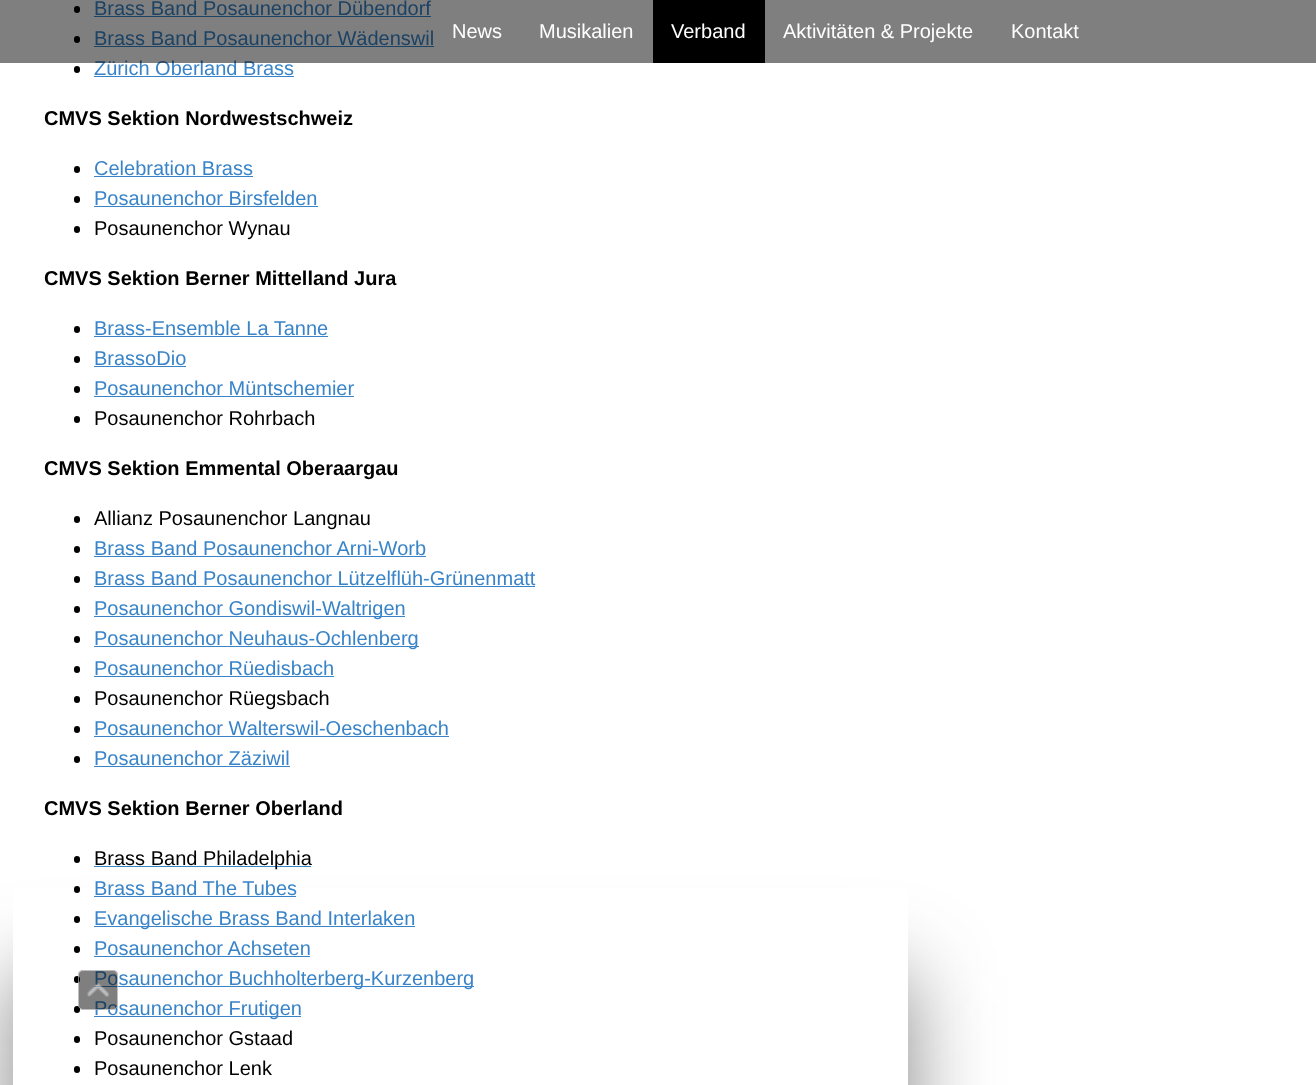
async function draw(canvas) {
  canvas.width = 1316
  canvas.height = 1085
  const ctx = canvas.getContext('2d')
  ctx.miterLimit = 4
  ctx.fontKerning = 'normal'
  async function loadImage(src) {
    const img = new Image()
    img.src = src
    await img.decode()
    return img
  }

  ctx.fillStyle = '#fff'
  ctx.fillRect(0, 0, 1316, 1085)
  ctx.fillStyle = '#33333399'
  ctx.filter = 'blur(42.5px)'
  ctx.beginPath()
  ctx.rect(13, 975, 895, 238)
  ctx.fill()
  ctx.filter = 'none'
  ctx.fillStyle = '#fff'
  ctx.fillRect(13, 888, 895, 197)
  ctx.fillStyle = '#000'
  ctx.beginPath()
  ctx.roundRect(74, 6, 6, 7, 3)
  ctx.fill()
  ctx.font = '20px Liberation Sans'
  ctx.fillStyle = '#3984c8'
  ctx.fillText('Brass Band Posaunenchor Dübendorf', 94, 15)
  ctx.fillRect(94, 16, 337, 1)
  ctx.fillStyle = '#000'
  ctx.beginPath()
  ctx.roundRect(74, 36, 6, 7, 3)
  ctx.fill()
  ctx.fillStyle = '#3984c8'
  ctx.fillText('Brass Band Posaunenchor Wädenswil', 94, 45)
  ctx.fillRect(94, 46, 340, 1)
  ctx.fillStyle = '#000'
  ctx.beginPath()
  ctx.roundRect(74, 66, 6, 7, 3)
  ctx.fill()
  ctx.fillStyle = '#3984c8'
  ctx.fillText('Zürich Oberland Brass', 94, 75)
  ctx.fillRect(94, 76, 200, 1)
  ctx.font = 'bold 20px Liberation Sans'
  ctx.fillStyle = '#000'
  ctx.fillText('CMVS Sektion Nordwestschweiz', 44, 125)
  ctx.beginPath()
  ctx.roundRect(74, 166, 6, 7, 3)
  ctx.fill()
  ctx.font = '20px Liberation Sans'
  ctx.fillStyle = '#3984c8'
  ctx.fillText('Celebration Brass', 94, 175)
  ctx.fillRect(94, 176, 159, 1)
  ctx.fillStyle = '#000'
  ctx.beginPath()
  ctx.roundRect(74, 196, 6, 7, 3)
  ctx.fill()
  ctx.fillStyle = '#3984c8'
  ctx.fillText('Posaunenchor Birsfelden', 94, 205)
  ctx.fillRect(94, 206, 224, 1)
  ctx.fillStyle = '#000'
  ctx.beginPath()
  ctx.roundRect(74, 226, 6, 7, 3)
  ctx.fill()
  ctx.fillText('Posaunenchor Wynau', 94, 235)
  ctx.font = 'bold 20px Liberation Sans'
  ctx.fillText('CMVS Sektion Berner Mittelland Jura', 44, 285)
  ctx.beginPath()
  ctx.roundRect(74, 326, 6, 7, 3)
  ctx.fill()
  ctx.font = '20px Liberation Sans'
  ctx.fillStyle = '#3984c8'
  ctx.fillText('Brass-Ensemble La Tanne', 94, 335)
  ctx.fillRect(94, 336, 234, 1)
  ctx.fillStyle = '#000'
  ctx.beginPath()
  ctx.roundRect(74, 356, 6, 7, 3)
  ctx.fill()
  ctx.fillStyle = '#3984c8'
  ctx.fillText('BrassoDio', 94, 365)
  ctx.fillRect(94, 366, 92, 1)
  ctx.fillStyle = '#000'
  ctx.beginPath()
  ctx.roundRect(74, 386, 6, 7, 3)
  ctx.fill()
  ctx.fillStyle = '#3984c8'
  ctx.fillText('Posaunenchor Müntschemier', 94, 395)
  ctx.fillRect(94, 396, 260, 1)
  ctx.fillStyle = '#000'
  ctx.beginPath()
  ctx.roundRect(74, 416, 6, 7, 3)
  ctx.fill()
  ctx.fillText('Posaunenchor Rohrbach', 94, 425)
  ctx.font = 'bold 20px Liberation Sans'
  ctx.fillText('CMVS Sektion Emmental Oberaargau', 44, 475)
  ctx.beginPath()
  ctx.roundRect(74, 516, 6, 7, 3)
  ctx.fill()
  ctx.font = '20px Liberation Sans'
  ctx.fillText('Allianz Posaunenchor Langnau', 94, 525)
  ctx.beginPath()
  ctx.roundRect(74, 546, 6, 7, 3)
  ctx.fill()
  ctx.fillStyle = '#3984c8'
  ctx.fillText('Brass Band Posaunenchor Arni-Worb', 94, 555)
  ctx.fillRect(94, 556, 332, 1)
  ctx.fillStyle = '#000'
  ctx.beginPath()
  ctx.roundRect(74, 576, 6, 7, 3)
  ctx.fill()
  ctx.fillStyle = '#3984c8'
  ctx.fillText('Brass Band Posaunenchor Lützelflüh-Grünenmatt', 94, 585)
  ctx.fillRect(94, 586, 441, 1)
  ctx.fillStyle = '#000'
  ctx.beginPath()
  ctx.roundRect(74, 606, 6, 7, 3)
  ctx.fill()
  ctx.fillStyle = '#3984c8'
  ctx.fillRect(94, 616, 311, 1)
  ctx.fillText('Posaunenchor Gondiswil-Waltrigen', 94, 615)
  ctx.fillStyle = '#000'
  ctx.beginPath()
  ctx.roundRect(74, 636, 6, 7, 3)
  ctx.fill()
  ctx.fillStyle = '#3984c8'
  ctx.fillRect(94, 646, 325, 1)
  ctx.fillText('Posaunenchor Neuhaus-Ochlenberg', 94, 645)
  ctx.fillStyle = '#000'
  ctx.beginPath()
  ctx.roundRect(74, 666, 6, 7, 3)
  ctx.fill()
  ctx.fillStyle = '#3984c8'
  ctx.fillText('Posaunenchor Rüedisbach', 94, 675)
  ctx.fillRect(94, 676, 240, 1)
  ctx.fillStyle = '#000'
  ctx.beginPath()
  ctx.roundRect(74, 696, 6, 7, 3)
  ctx.fill()
  ctx.fillText('Posaunenchor Rüegsbach', 94, 705)
  ctx.beginPath()
  ctx.roundRect(74, 726, 6, 7, 3)
  ctx.fill()
  ctx.fillStyle = '#3984c8'
  ctx.fillText('Posaunenchor Walterswil-Oeschenbach', 94, 735)
  ctx.fillRect(94, 736, 355, 1)
  ctx.fillStyle = '#000'
  ctx.beginPath()
  ctx.roundRect(74, 756, 6, 7, 3)
  ctx.fill()
  ctx.fillStyle = '#3984c8'
  ctx.fillText('Posaunenchor Zäziwil', 94, 765)
  ctx.fillRect(94, 766, 196, 1)
  ctx.font = 'bold 20px Liberation Sans'
  ctx.fillStyle = '#000'
  ctx.fillText('CMVS Sektion Berner Oberland', 44, 815)
  ctx.beginPath()
  ctx.roundRect(74, 856, 6, 7, 3)
  ctx.fill()
  ctx.fillStyle = '#3984c8'
  ctx.fillRect(94, 866, 217, 1)
  ctx.font = '20px Liberation Sans'
  ctx.fillStyle = '#000'
  ctx.fillText('Brass Band Philadelphia', 94, 865)
  ctx.beginPath()
  ctx.roundRect(74, 886, 6, 7, 3)
  ctx.fill()
  ctx.fillStyle = '#3984c8'
  ctx.fillText('Brass Band The Tubes', 94, 895)
  ctx.fillRect(94, 896, 202, 1)
  ctx.fillStyle = '#000'
  ctx.beginPath()
  ctx.roundRect(74, 916, 6, 7, 3)
  ctx.fill()
  ctx.fillStyle = '#3984c8'
  ctx.fillRect(94, 926, 321, 1)
  ctx.fillText('Evangelische Brass Band Interlaken', 94, 925)
  ctx.fillStyle = '#000'
  ctx.beginPath()
  ctx.roundRect(74, 946, 6, 7, 3)
  ctx.fill()
  ctx.fillStyle = '#3984c8'
  ctx.fillText('Posaunenchor Achseten', 94, 955)
  ctx.fillRect(94, 956, 216, 1)
  ctx.fillStyle = '#000'
  ctx.beginPath()
  ctx.roundRect(74, 976, 6, 7, 3)
  ctx.fill()
  ctx.fillStyle = '#3984c8'
  ctx.fillRect(94, 986, 380, 1)
  ctx.fillText('Posaunenchor Buchholterberg-Kurzenberg', 94, 985)
  ctx.fillStyle = '#000'
  ctx.beginPath()
  ctx.roundRect(74, 1006, 6, 7, 3)
  ctx.fill()
  ctx.fillStyle = '#3984c8'
  ctx.fillRect(94, 1016, 207, 1)
  ctx.fillText('Posaunenchor Frutigen', 94, 1015)
  ctx.fillStyle = '#000'
  ctx.beginPath()
  ctx.roundRect(74, 1036, 6, 7, 3)
  ctx.fill()
  ctx.fillText('Posaunenchor Gstaad', 94, 1045)
  ctx.beginPath()
  ctx.roundRect(74, 1066, 6, 7, 3)
  ctx.fill()
  ctx.fillText('Posaunenchor Lenk', 94, 1075)
  ctx.fillStyle = '#00000080'
  ctx.fillRect(0, 0, 1316, 63)
  ctx.fillStyle = '#fff'
  ctx.fillText('News', 452, 38)
  ctx.fillText('Musikalien', 539, 38)
  ctx.fillStyle = '#000'
  ctx.fillRect(653, 0, 112, 63)
  ctx.fillStyle = '#fff'
  ctx.fillText('Verband', 671, 38)
  ctx.fillText('Aktivitäten & Projekte', 783, 38)
  ctx.fillText('Kontakt', 1011, 38)
  ctx.fillStyle = '#00000080'
  ctx.beginPath()
  ctx.roundRect(78, 970, 40, 40, 5)
  ctx.fill()
  ctx.beginPath()
  ctx.roundRect(78.5, 970.5, 39, 39, 4.5)
  ctx.strokeStyle = '#ffffff80'
  ctx.stroke()
  ctx.drawImage(await loadImage('image0.png'), 87, 983, 22, 14)
}

draw(document.querySelector('canvas'))
